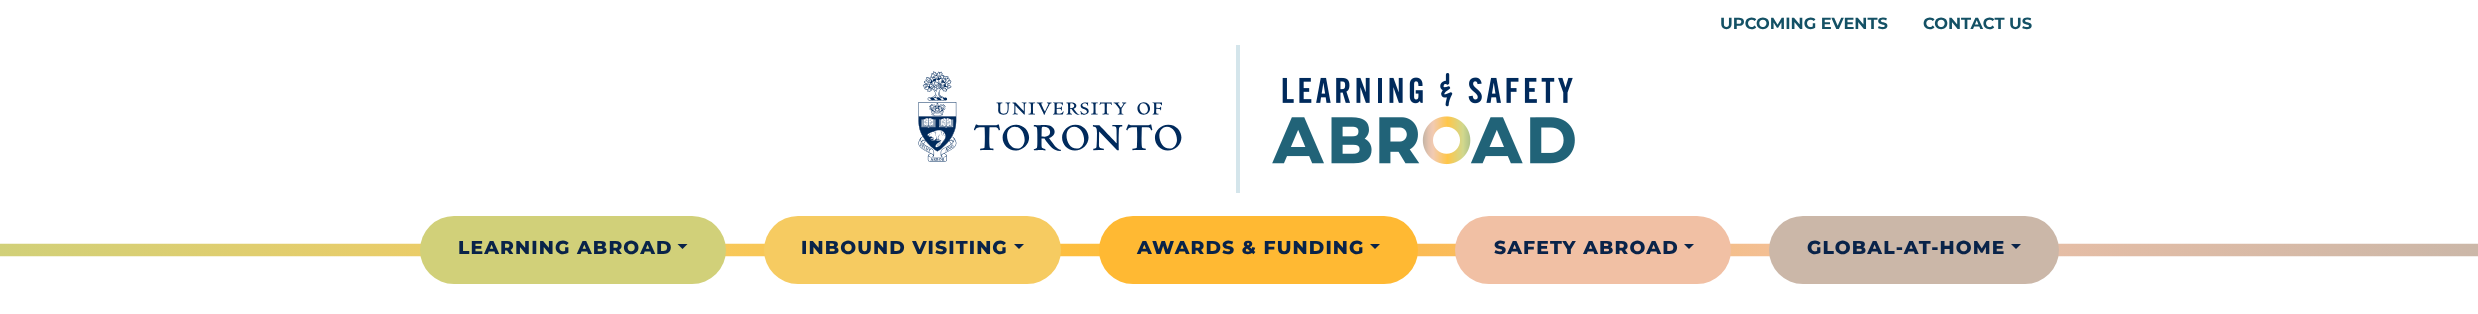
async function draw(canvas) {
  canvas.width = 2478
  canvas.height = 314
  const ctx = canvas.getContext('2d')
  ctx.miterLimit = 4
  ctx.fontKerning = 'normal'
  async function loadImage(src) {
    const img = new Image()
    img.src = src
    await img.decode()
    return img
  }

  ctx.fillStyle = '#fff'
  ctx.fillRect(0, 0, 2478, 314)
  ctx.font = 'bold 16.25px Montserrat'
  ctx.fillStyle = '#145165'
  ctx.fillText('UPCOMING EVENTS', 1720, 29)
  ctx.fillText('CONTACT US', 1923, 29)
  ctx.drawImage(await loadImage('image0.png'), 0, 243, 2478, 14)
  ctx.drawImage(await loadImage('image1.png'), 918, 71, 264, 91)
  ctx.fillStyle = '#d4e5eb'
  ctx.fillRect(1236, 45, 4, 148)
  ctx.drawImage(await loadImage('image2.png'), 1272, 73, 303, 92)
  ctx.fillStyle = '#d1d079'
  ctx.beginPath()
  ctx.roundRect(420, 216, 306, 68, 34)
  ctx.fill()
  ctx.letterSpacing = '1.1px'
  ctx.font = '800 18.75px Montserrat'
  ctx.fillStyle = '#092349'
  ctx.fillText('LEARNING ABROAD', 458, 254)
  ctx.beginPath()
  ctx.moveTo(677.5, 244)
  ctx.lineTo(687.5, 244)
  ctx.lineTo(682.5, 249)
  ctx.closePath()
  ctx.fill()
  ctx.fillStyle = '#f6cb61'
  ctx.beginPath()
  ctx.roundRect(764, 216, 297, 68, 34)
  ctx.fill()
  ctx.fillStyle = '#092349'
  ctx.fillText('INBOUND VISITING', 801, 254)
  ctx.beginPath()
  ctx.moveTo(1014, 244)
  ctx.lineTo(1024, 244)
  ctx.lineTo(1019, 249)
  ctx.closePath()
  ctx.fill()
  ctx.fillStyle = '#ffb933'
  ctx.beginPath()
  ctx.roundRect(1099, 216, 319, 68, 34)
  ctx.fill()
  ctx.fillStyle = '#092349'
  ctx.fillText('AWARDS & FUNDING', 1137, 254)
  ctx.beginPath()
  ctx.moveTo(1370, 244)
  ctx.lineTo(1380, 244)
  ctx.lineTo(1375, 249)
  ctx.closePath()
  ctx.fill()
  ctx.fillStyle = '#f1c0a4'
  ctx.beginPath()
  ctx.roundRect(1455, 216, 276, 68, 34)
  ctx.fill()
  ctx.fillStyle = '#092349'
  ctx.fillText('SAFETY ABROAD', 1494, 254)
  ctx.beginPath()
  ctx.moveTo(1684, 244)
  ctx.lineTo(1694, 244)
  ctx.lineTo(1689, 249)
  ctx.closePath()
  ctx.fill()
  ctx.fillStyle = '#cbb7a8'
  ctx.beginPath()
  ctx.roundRect(1769, 216, 290, 68, 34)
  ctx.fill()
  ctx.fillStyle = '#092349'
  ctx.fillText('GLOBAL-AT-HOME', 1807, 254)
  ctx.beginPath()
  ctx.moveTo(2011, 244)
  ctx.lineTo(2021, 244)
  ctx.lineTo(2016, 249)
  ctx.closePath()
  ctx.fill()
}

draw(document.querySelector('canvas'))
